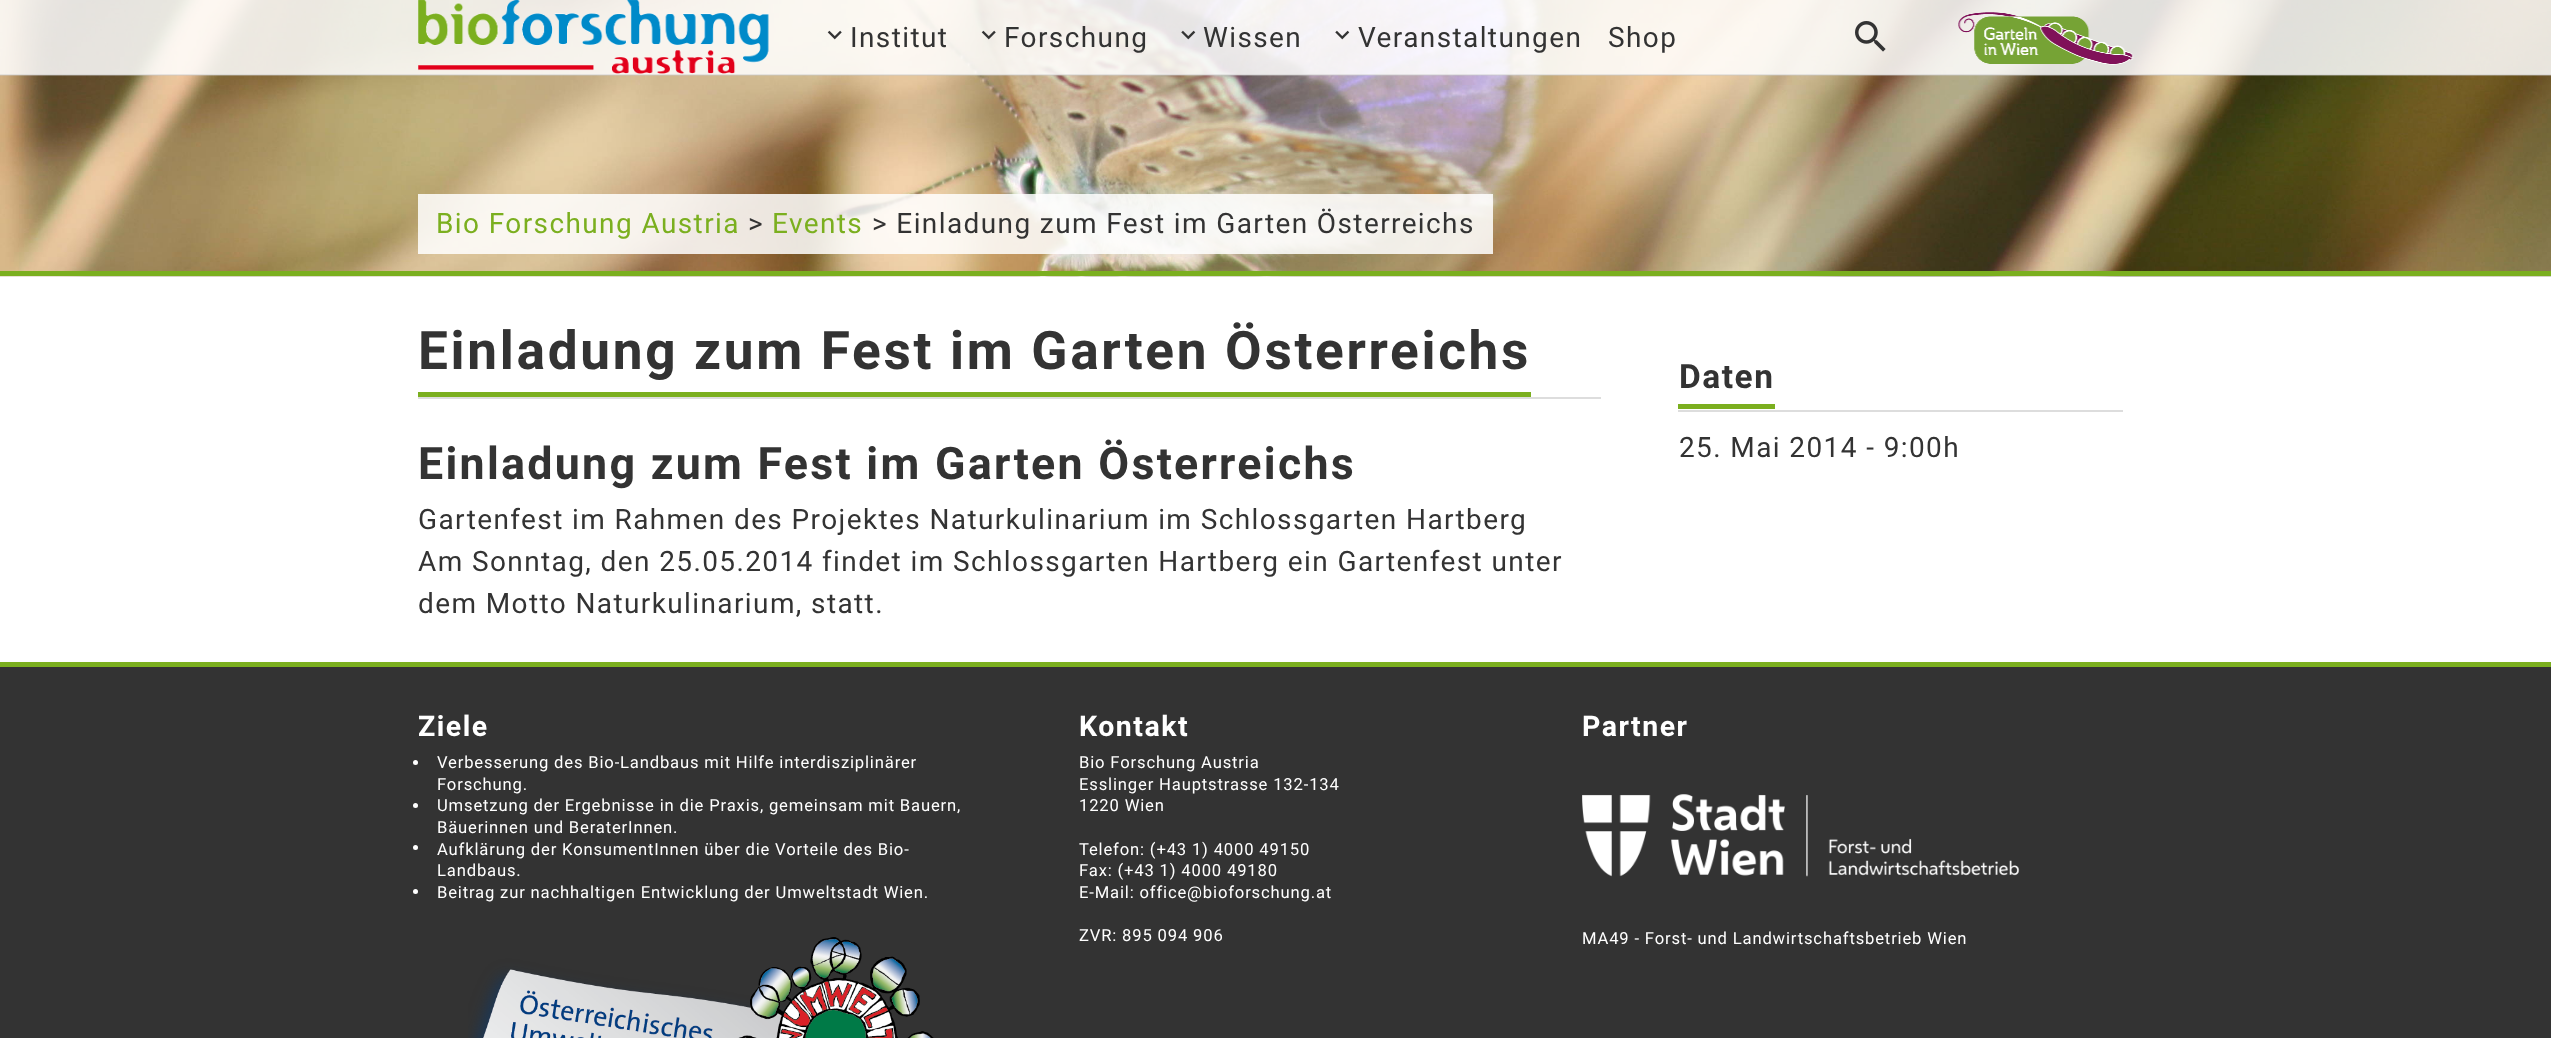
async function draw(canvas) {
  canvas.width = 2551
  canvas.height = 1038
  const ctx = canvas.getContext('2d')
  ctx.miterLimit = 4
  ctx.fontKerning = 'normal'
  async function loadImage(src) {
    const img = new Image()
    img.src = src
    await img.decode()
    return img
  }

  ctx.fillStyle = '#eee'
  ctx.fillRect(0, 0, 2551, 1038)
  ctx.drawImage(await loadImage('image7.png'), 0, 0, 2551, 277)
  ctx.fillStyle = '#ffffffd9'
  ctx.fillRect(0, 0, 2551, 75)
  ctx.fillStyle = '#c9c9c966'
  ctx.fillRect(0, 74, 2551, 2)
  ctx.drawImage(await loadImage('image0.png'), 418, 0, 351, 74)
  ctx.drawImage(await loadImage('image1.png'), 827, 30, 15, 10)
  ctx.letterSpacing = '1.4px'
  ctx.font = '28px Roboto'
  ctx.fillStyle = '#333'
  ctx.fillText('Institut', 850, 47)
  ctx.drawImage(await loadImage('image2.png'), 981, 30, 15, 10)
  ctx.fillText('Forschung', 1004, 47)
  ctx.drawImage(await loadImage('image3.png'), 1181, 30, 15, 10)
  ctx.fillText('Wissen', 1203, 47)
  ctx.drawImage(await loadImage('image4.png'), 1335, 30, 15, 10)
  ctx.fillText('Veranstaltungen', 1358, 47)
  ctx.fillText('Shop', 1608, 47)
  ctx.drawImage(await loadImage('image5.png'), 1855, 21, 31, 31)
  ctx.drawImage(await loadImage('image6.png'), 1958, 12, 176, 53)
  ctx.fillStyle = '#7baf1f'
  ctx.fillRect(0, 271, 2551, 5)
  ctx.fillStyle = '#ffffffd9'
  ctx.fillRect(418, 194, 1075, 60)
  ctx.fillStyle = '#7baf1f'
  ctx.fillText('Bio Forschung Austria', 436, 233)
  ctx.fillStyle = '#333'
  ctx.fillText('>', 748, 233)
  ctx.fillStyle = '#7baf1f'
  ctx.fillText('Events', 772, 233)
  ctx.fillStyle = '#333'
  ctx.fillText('> Einladung zum Fest im Garten Österreichs', 872, 233)
  ctx.fillStyle = '#fff'
  ctx.fillRect(0, 277, 2551, 385)
  ctx.fillStyle = '#ddd'
  ctx.fillRect(418, 397, 1183, 2)
  ctx.fillStyle = '#7baf1f'
  ctx.fillRect(418, 392, 1113, 5)
  ctx.letterSpacing = '2.65px'
  ctx.font = 'bold 53.2px Roboto'
  ctx.fillStyle = '#333'
  ctx.fillText('Einladung zum Fest im Garten Österreichs', 418, 369)
  ctx.letterSpacing = '2.25px'
  ctx.font = 'bold 44.8px Roboto'
  ctx.fillText('Einladung zum Fest im Garten Österreichs', 418, 479)
  ctx.letterSpacing = '1.4px'
  ctx.font = '28px Roboto'
  ctx.fillText('Gartenfest im Rahmen des Projektes Naturkulinarium im Schlossgarten Hartberg', 418, 529)
  ctx.fillText('Am Sonntag, den 25.05.2014 findet im Schlossgarten Hartberg ein Gartenfest unter', 418, 571)
  ctx.fillText('dem Motto Naturkulinarium, statt.', 418, 613)
  ctx.fillStyle = '#ddd'
  ctx.fillRect(1678, 410, 445, 2)
  ctx.fillStyle = '#7baf1f'
  ctx.fillRect(1678, 404, 97, 5)
  ctx.letterSpacing = '1.5px'
  ctx.font = 'bold 33.5px Roboto'
  ctx.fillStyle = '#333'
  ctx.fillText('Daten', 1679, 388)
  ctx.letterSpacing = '1.4px'
  ctx.font = '28px Roboto'
  ctx.fillText('25. Mai 2014 - 9:00h', 1679, 457)
  ctx.fillRect(0, 667, 2551, 371)
  ctx.fillStyle = '#7baf1f'
  ctx.fillRect(0, 662, 2551, 5)
  ctx.letterSpacing = '1.5px'
  ctx.font = 'bold 28.5px Roboto'
  ctx.fillStyle = '#fff'
  ctx.fillText('Ziele', 418, 736)
  ctx.beginPath()
  ctx.arc(415.5, 762.5, 2.5, 0, 2 * Math.PI)
  ctx.fill()
  ctx.letterSpacing = '0.83px'
  ctx.font = '16.65px Roboto'
  ctx.fillText('Verbesserung des Bio-Landbaus mit Hilfe interdisziplinärer', 437, 768)
  ctx.fillText('Forschung.', 437, 790)
  ctx.beginPath()
  ctx.arc(415.5, 805.5, 2.5, 0, 2 * Math.PI)
  ctx.fill()
  ctx.fillText('Umsetzung der Ergebnisse in die Praxis, gemeinsam mit Bauern,', 437, 811)
  ctx.fillText('Bäuerinnen und BeraterInnen.', 437, 833)
  ctx.beginPath()
  ctx.arc(415.5, 847.5, 2.5, 0, 2 * Math.PI)
  ctx.fill()
  ctx.fillText('Aufklärung der KonsumentInnen über die Vorteile des Bio-', 437, 855)
  ctx.fillText('Landbaus.', 437, 876)
  ctx.beginPath()
  ctx.arc(415.5, 891.5, 2.5, 0, 2 * Math.PI)
  ctx.fill()
  ctx.fillText('Beitrag zur nachhaltigen Entwicklung der Umweltstadt Wien.', 437, 898)
  ctx.drawImage(await loadImage('image8.png'), 468, 937, 466, 101)
  ctx.letterSpacing = '1.5px'
  ctx.font = 'bold 28.5px Roboto'
  ctx.fillText('Kontakt', 1079, 736)
  ctx.letterSpacing = '0.83px'
  ctx.font = '16.65px Roboto'
  ctx.fillText('Bio Forschung Austria', 1079, 768)
  ctx.fillText('Esslinger Hauptstrasse 132-134', 1079, 790)
  ctx.fillText('1220 Wien', 1079, 811)
  ctx.fillText('Telefon: (+43 1) 4000 49150', 1079, 855)
  ctx.fillText('Fax: (+43 1) 4000 49180', 1079, 876)
  ctx.fillText('E-Mail: office@bioforschung.at', 1079, 898)
  ctx.fillText('ZVR: 895 094 906', 1079, 941)
  ctx.letterSpacing = '1.5px'
  ctx.font = 'bold 28.5px Roboto'
  ctx.fillText('Partner', 1582, 736)
  ctx.drawImage(await loadImage('image9.png'), 1582, 794, 438, 83)
  ctx.letterSpacing = '0.83px'
  ctx.font = '16.65px Roboto'
  ctx.fillText('MA49 - Forst- und Landwirtschaftsbetrieb Wien', 1582, 944)
}

draw(document.querySelector('canvas'))
